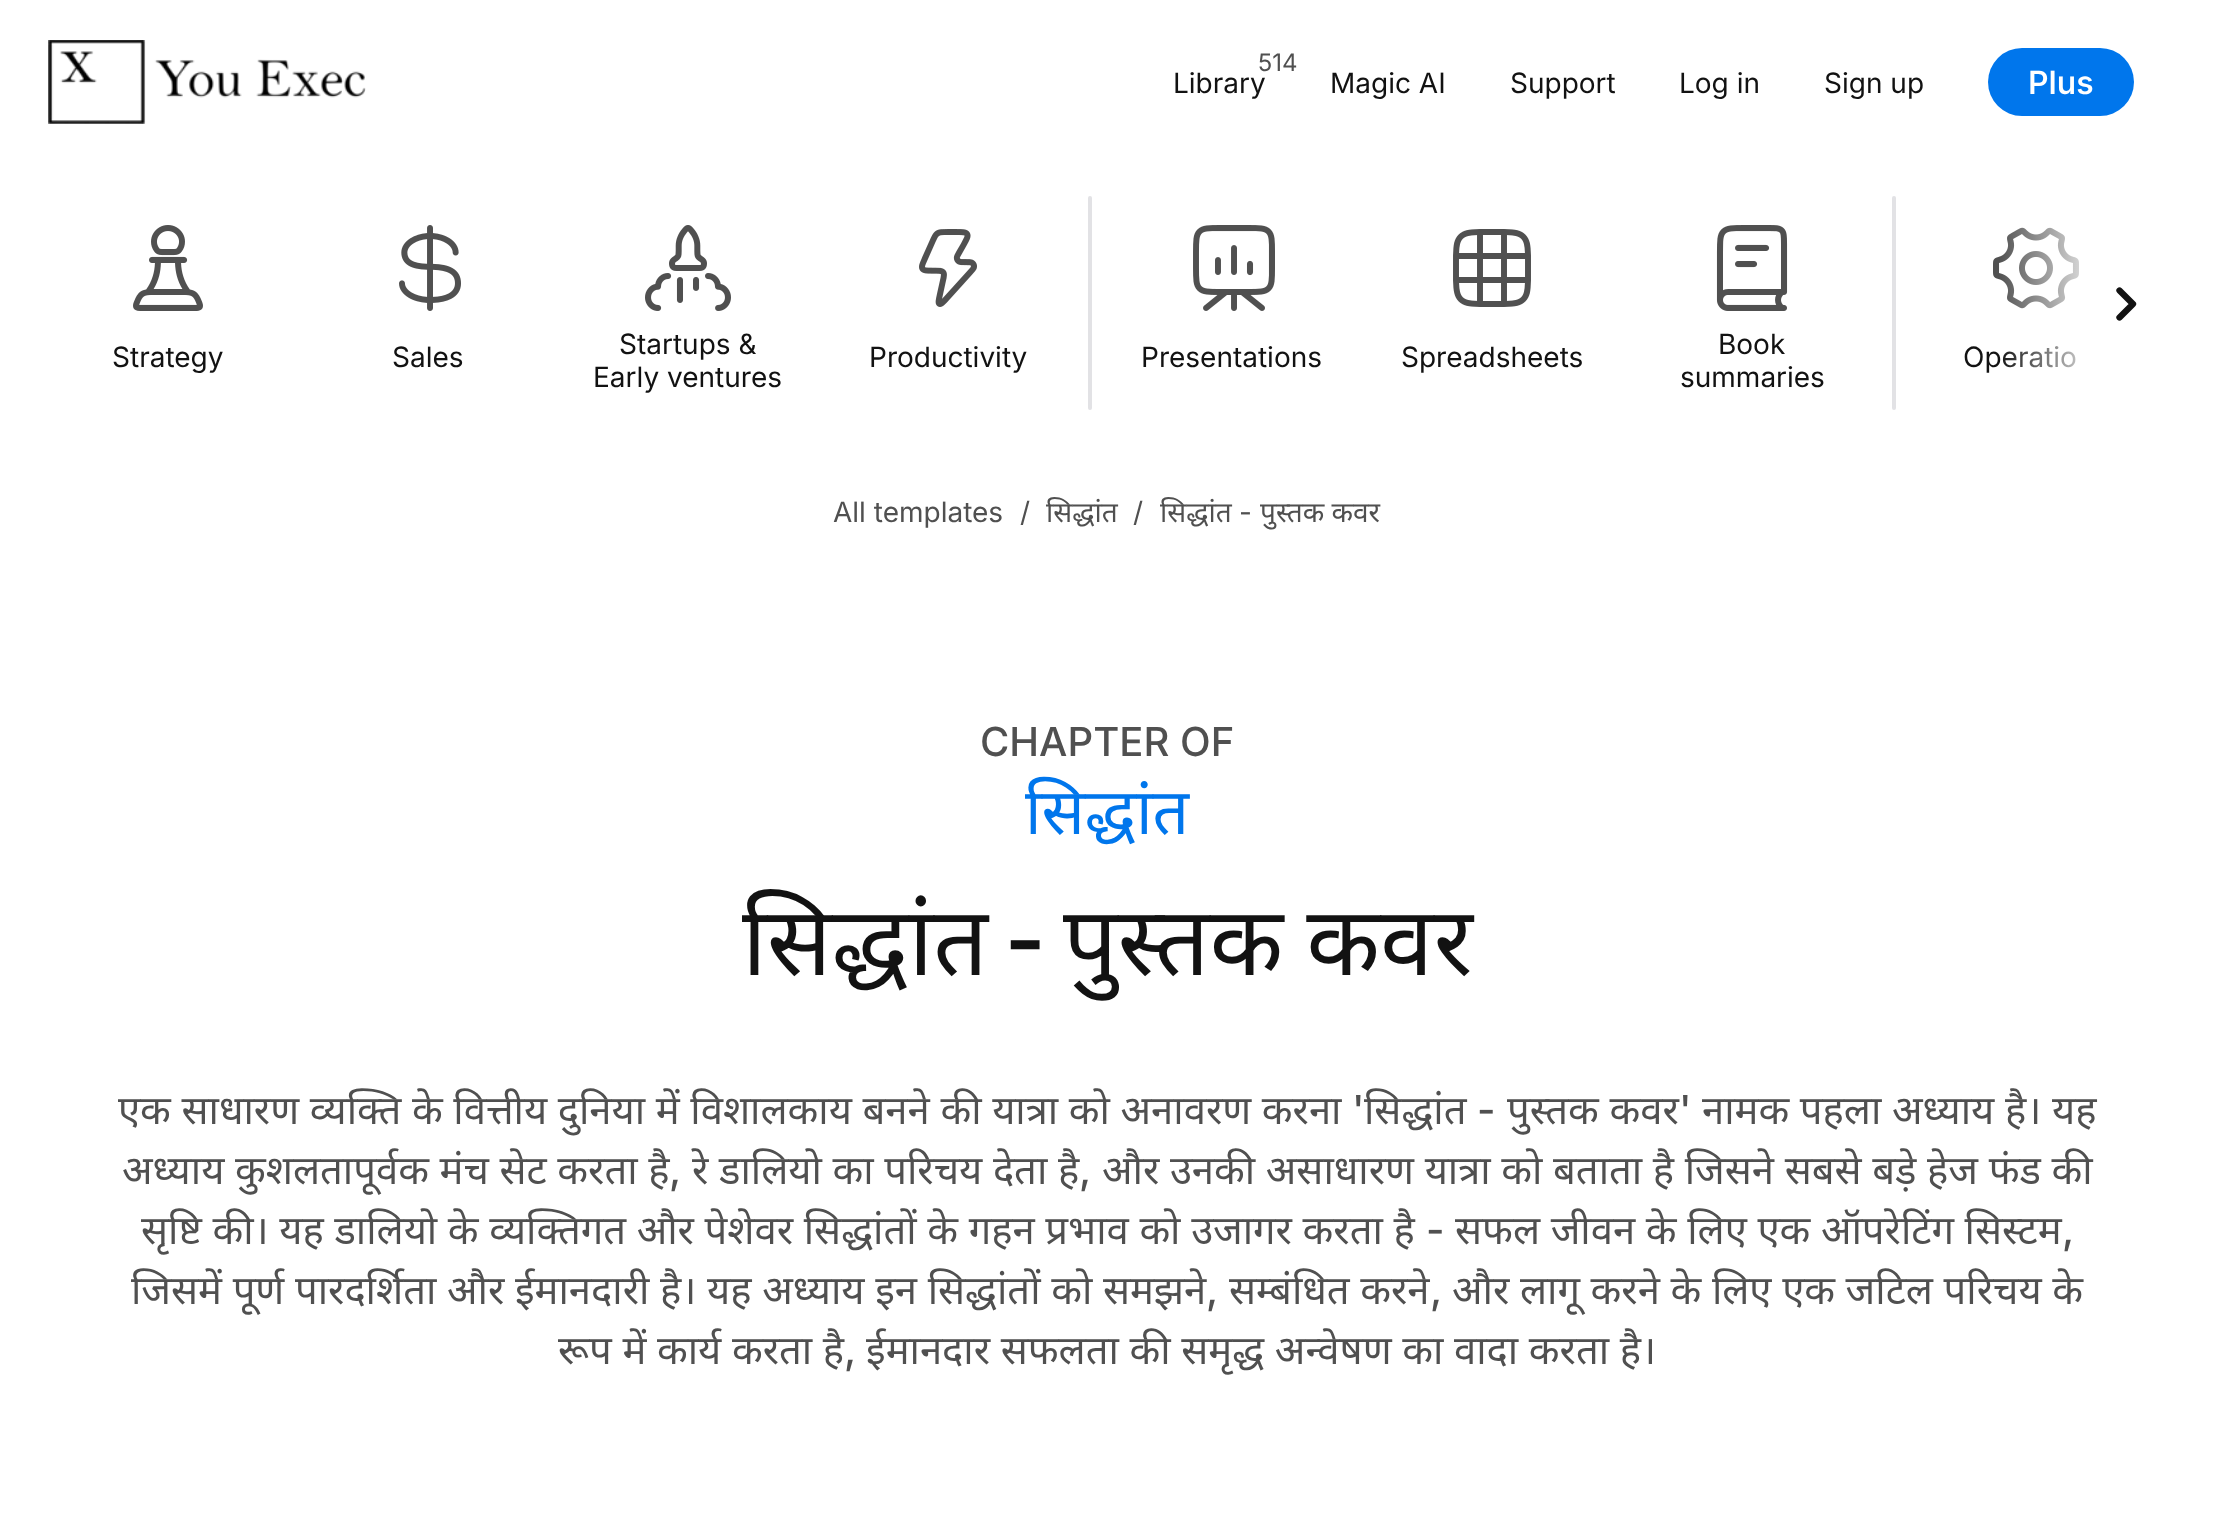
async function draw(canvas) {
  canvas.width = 2213
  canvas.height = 1538
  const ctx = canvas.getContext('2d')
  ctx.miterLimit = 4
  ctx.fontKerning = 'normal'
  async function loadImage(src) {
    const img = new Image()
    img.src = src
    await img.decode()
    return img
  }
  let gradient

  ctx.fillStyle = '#fff'
  ctx.fillRect(0, 0, 2213, 1538)
  ctx.drawImage(await loadImage('image0.png'), 48, 40, 318, 84)
  ctx.font = '24px Inter'
  ctx.fillStyle = '#505050'
  ctx.fillText('514', 1258, 71)
  ctx.font = '28px Inter'
  ctx.fillStyle = '#121212'
  ctx.fillText('Library', 1173, 93)
  ctx.fillText('Magic AI', 1330, 93)
  ctx.fillText('Support', 1510, 93)
  ctx.fillText('Log in', 1679, 93)
  ctx.fillText('Sign up', 1824, 93)
  ctx.fillStyle = '#0076ec'
  ctx.beginPath()
  ctx.roundRect(1988, 48, 146, 68, 34)
  ctx.fill()
  ctx.font = '500 32px "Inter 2"'
  ctx.fillStyle = '#fff'
  ctx.fillText('Plus', 2028, 94)
  ctx.drawImage(await loadImage('image8.png'), 1993, 227, 86, 82)
  ctx.font = '28px Inter'
  ctx.fillStyle = '#121212'
  ctx.fillText('Operatio', 1963, 367)
  gradient = ctx.createLinearGradient(2166, 303, 1998, 303)
  gradient.addColorStop(0.35, '#fff')
  gradient.addColorStop(1, '#ffffff00')
  ctx.fillStyle = gradient
  ctx.fillRect(2000, 227, 79, 141)
  ctx.beginPath()
  ctx.moveTo(2119.5, 290.5)
  ctx.lineTo(2133, 304)
  ctx.lineTo(2119.5, 317.5)
  ctx.strokeStyle = '#121212'
  ctx.lineWidth = 6.3
  ctx.lineCap = 'round'
  ctx.lineJoin = 'round'
  ctx.stroke()
  ctx.drawImage(await loadImage('image1.png'), 133, 225, 70, 86)
  ctx.fillStyle = '#121212'
  ctx.fillText('Strategy', 112, 367)
  ctx.drawImage(await loadImage('image2.png'), 399, 225, 62, 86)
  ctx.fillText('Sales', 392, 367)
  ctx.drawImage(await loadImage('image3.png'), 645, 225, 86, 86)
  ctx.fillText('Startups &', 619, 354)
  ctx.fillText('Early ventures', 593, 387)
  ctx.drawImage(await loadImage('image4.png'), 919, 229, 58, 78)
  ctx.fillText('Productivity', 869, 367)
  ctx.fillStyle = '#e2e2e5'
  ctx.beginPath()
  ctx.roundRect(1088, 196, 4, 214, 2)
  ctx.fill()
  ctx.drawImage(await loadImage('image5.png'), 1193, 225, 82, 86)
  ctx.fillStyle = '#121212'
  ctx.fillText('Presentations', 1141, 367)
  ctx.drawImage(await loadImage('image6.png'), 1453, 229, 78, 78)
  ctx.fillText('Spreadsheets', 1401, 367)
  ctx.drawImage(await loadImage('image7.png'), 1716, 225, 72, 86)
  ctx.fillText('Book', 1718, 354)
  ctx.fillText('summaries', 1680, 387)
  ctx.fillStyle = '#e2e2e5'
  ctx.beginPath()
  ctx.roundRect(1892, 196, 4, 214, 2)
  ctx.fill()
  ctx.fillStyle = '#505050'
  ctx.fillText('All templates', 833, 522)
  ctx.fillText('/', 1020, 522)
  ctx.font = '28px Noto Sans'
  ctx.fillText('सिद्धांत', 1046, 522)
  ctx.font = '28px Inter'
  ctx.fillText('/', 1133, 522)
  ctx.font = '28px Noto Sans'
  ctx.fillText('सिद्धांत', 1160, 522)
  ctx.font = '28px Inter'
  ctx.fillText('-', 1239, 522)
  ctx.font = '28px Noto Sans'
  ctx.fillText('पुस्तक कवर', 1260, 522)
  ctx.font = '500 40px Inter'
  ctx.fillText('CHAPTER OF', 980, 756)
  ctx.font = '64px Noto Sans'
  ctx.fillStyle = '#0076ec'
  ctx.fillText('सिद्धांत', 1025, 834)
  ctx.font = '96px Noto Sans'
  ctx.fillStyle = '#121212'
  ctx.fillText('सिद्धांत', 742, 975)
  ctx.font = 'bold 96px Manrope'
  ctx.fillText('-', 1005, 975)
  ctx.wordSpacing = '-2px'
  ctx.font = '96px Noto Sans'
  ctx.fillText('पुस्तक कवर', 1063, 975)
  ctx.wordSpacing = '0.25px'
  ctx.font = '40px Noto Sans'
  ctx.fillStyle = '#505050'
  ctx.fillText('एक साधारण व्यक्ति के वित्तीय दुनिया में विशालकाय बनने की यात्रा को अनावरण करना', 118, 1124)
  ctx.wordSpacing = '0px'
  ctx.font = '500 40px Inter'
  ctx.fillText('\'', 1352, 1124)
  ctx.font = '40px Noto Sans'
  ctx.fillText('सिद्धांत', 1364, 1124)
  ctx.font = '500 40px Inter'
  ctx.fillText('-', 1477, 1124)
  ctx.wordSpacing = '0.25px'
  ctx.font = '40px Noto Sans'
  ctx.fillText('पुस्तक कवर', 1507, 1124)
  ctx.wordSpacing = '0px'
  ctx.font = '500 40px Inter'
  ctx.fillText('\'', 1679, 1124)
  ctx.wordSpacing = '0.25px'
  ctx.font = '40px Noto Sans'
  ctx.fillText('नामक पहला अध्याय है। यह', 1702, 1124)
  ctx.fillText('अध्याय कुशलतापूर्वक मंच सेट करता है', 122, 1184)
  ctx.wordSpacing = '0px'
  ctx.font = '500 40px Inter'
  ctx.fillText(',', 669, 1184)
  ctx.wordSpacing = '0.25px'
  ctx.font = '40px Noto Sans'
  ctx.fillText('रे डालियो का परिचय देता है', 692, 1184)
  ctx.fillText('और उनकी असाधारण यात्रा को बताता है जिसने सबसे बड़े हेज फंड की', 1102, 1184)
  ctx.wordSpacing = '0px'
  ctx.font = '500 40px Inter'
  ctx.fillText(',', 1079, 1184)
  ctx.wordSpacing = '0.25px'
  ctx.font = '40px Noto Sans'
  ctx.fillText('सृष्टि की। यह डालियो के व्यक्तिगत और पेशेवर सिद्धांतों के गहन प्रभाव को उजागर करता है', 141, 1244)
  ctx.wordSpacing = '0px'
  ctx.font = '500 40px Inter'
  ctx.fillText('-', 1426, 1244)
  ctx.wordSpacing = '0.25px'
  ctx.font = '40px Noto Sans'
  ctx.fillText('सफल जीवन के लिए एक ऑपरेटिंग सिस्टम', 1455, 1244)
  ctx.wordSpacing = '0px'
  ctx.font = '500 40px Inter'
  ctx.fillText(',', 2062, 1244)
  ctx.wordSpacing = '0.25px'
  ctx.font = '40px Noto Sans'
  ctx.fillText('जिसमें पूर्ण पारदर्शिता और ईमानदारी है। यह अध्याय इन सिद्धांतों को समझने', 131, 1304)
  ctx.wordSpacing = '0px'
  ctx.font = '500 40px Inter'
  ctx.fillText(',', 1206, 1304)
  ctx.wordSpacing = '0.25px'
  ctx.font = '40px Noto Sans'
  ctx.fillText('सम्बंधित करने', 1229, 1304)
  ctx.wordSpacing = '0px'
  ctx.font = '500 40px Inter'
  ctx.fillText(',', 1430, 1304)
  ctx.wordSpacing = '0.25px'
  ctx.font = '40px Noto Sans'
  ctx.fillText('और लागू करने के लिए एक जटिल परिचय के', 1452, 1304)
  ctx.fillText('रूप में कार्य करता है', 558, 1364)
  ctx.wordSpacing = '0px'
  ctx.font = '500 40px Inter'
  ctx.fillText(',', 844, 1364)
  ctx.wordSpacing = '0.25px'
  ctx.font = '40px Noto Sans'
  ctx.fillText('ईमानदार सफलता की समृद्ध अन्वेषण का वादा करता है।', 866, 1364)
}

draw(document.querySelector('canvas'))
